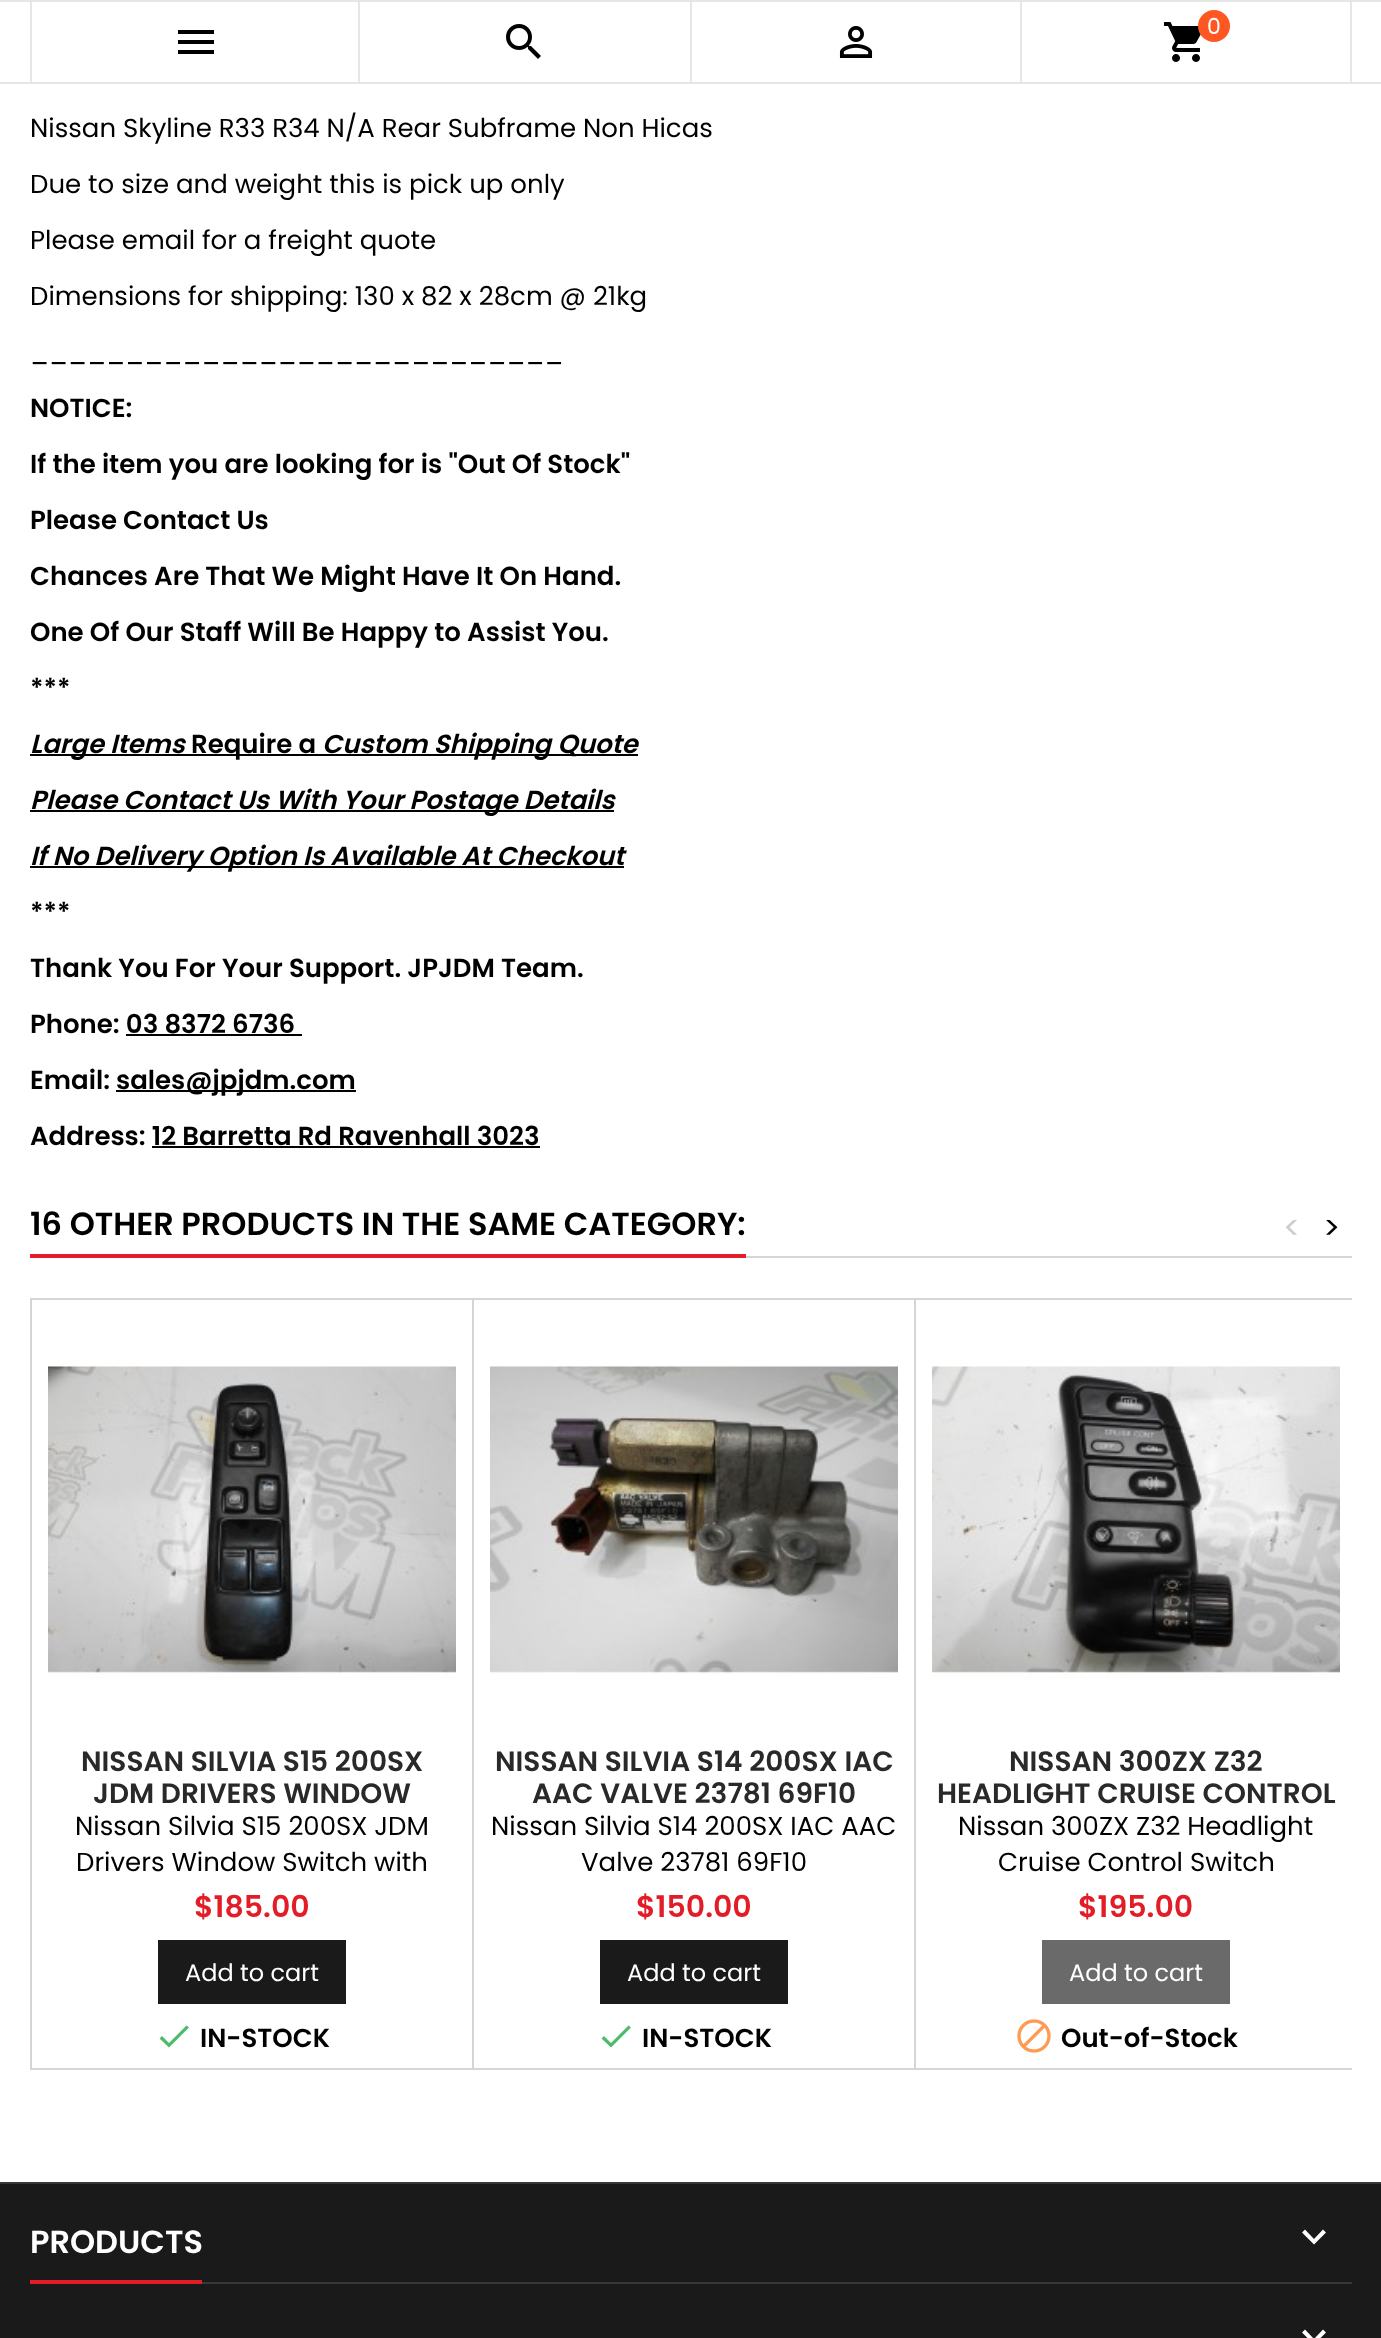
async function draw(canvas) {
  canvas.width = 1381
  canvas.height = 2338
  const ctx = canvas.getContext('2d')
  ctx.miterLimit = 4
  ctx.fontKerning = 'normal'
  async function loadImage(src) {
    const img = new Image()
    img.src = src
    await img.decode()
    return img
  }

  ctx.fillStyle = '#fff'
  ctx.fillRect(0, 0, 1381, 2338)
  ctx.fillStyle = '#e6e6e6'
  ctx.fillRect(0, 0, 1381, 2)
  ctx.fillRect(0, 82, 1381, 2)
  ctx.fillRect(358, 2, 2, 80)
  ctx.fillRect(30, 2, 2, 80)
  ctx.fillStyle = '#000'
  ctx.beginPath()
  ctx.moveTo(178, 30)
  ctx.lineTo(214, 30)
  ctx.lineTo(214, 34)
  ctx.lineTo(178, 34)
  ctx.closePath()
  ctx.moveTo(178, 44)
  ctx.lineTo(178, 40)
  ctx.lineTo(214, 40)
  ctx.lineTo(214, 44)
  ctx.closePath()
  ctx.moveTo(178, 54)
  ctx.lineTo(178, 50)
  ctx.lineTo(214, 50)
  ctx.lineTo(214, 54)
  ctx.closePath()
  ctx.fill()
  ctx.fillStyle = '#e6e6e6'
  ctx.fillRect(690, 2, 2, 80)
  ctx.drawImage(await loadImage('image0.png'), 506, 24, 35, 35)
  ctx.fillRect(1020, 2, 2, 80)
  ctx.drawImage(await loadImage('image1.png'), 839, 26, 34, 32)
  ctx.fillRect(1350, 2, 2, 80)
  ctx.drawImage(await loadImage('image2.png'), 1163, 22, 38, 40)
  ctx.fillStyle = '#ff5722'
  ctx.beginPath()
  ctx.arc(1214, 26, 16, 0, 2 * Math.PI)
  ctx.fill()
  ctx.font = '22px Poppins'
  ctx.fillStyle = '#fff'
  ctx.fillText('0', 1207, 34)
  ctx.font = '26px Poppins'
  ctx.fillStyle = '#000'
  ctx.fillText('Nissan Skyline R33 R34 N/A Rear Subframe Non Hicas', 30, 137)
  ctx.fillText('Due to size and weight this is pick up only', 30, 193)
  ctx.fillText('Please email for a freight quote', 30, 249)
  ctx.fillText('Dimensions for shipping: 130 x 82 x 28cm @ 21kg', 30, 305)
  ctx.fillText('____________________________', 30, 361)
  ctx.font = '600 26px Poppins'
  ctx.fillText('NOTICE:', 30, 417)
  ctx.fillText('If the item you are looking for is "Out Of Stock"', 30, 473)
  ctx.fillText('Please Contact Us', 30, 529)
  ctx.fillText('Chances Are That We Might Have It On Hand.', 30, 585)
  ctx.fillText('One Of Our Staff Will Be Happy to Assist You.', 30, 641)
  ctx.fillText('***', 30, 697)
  ctx.fillRect(30, 754, 154, 2)
  ctx.font = 'italic 600 26px Poppins'
  ctx.fillText('Large Items', 30, 753)
  ctx.fillRect(184, 754, 454, 2)
  ctx.font = '600 26px Poppins'
  ctx.fillText('Require a', 191, 753)
  ctx.font = 'italic 600 26px Poppins'
  ctx.fillText('Custom Shipping Quote', 322, 753)
  ctx.fillRect(30, 810, 584, 2)
  ctx.fillText('Please Contact Us With Your Postage Details', 30, 809)
  ctx.fillRect(30, 866, 594, 2)
  ctx.fillText('If No Delivery Option Is Available At Checkout', 30, 865)
  ctx.font = '600 26px Poppins'
  ctx.fillText('***', 30, 921)
  ctx.fillText('Thank You For Your Support. JPJDM Team.', 30, 977)
  ctx.fillText('Phone: 03 8372 6736', 30, 1033)
  ctx.fillRect(126, 1034, 176, 2)
  ctx.fillText('Email:', 30, 1089)
  ctx.fillRect(116, 1090, 240, 2)
  ctx.fillText('sales@jpjdm.com', 116, 1089)
  ctx.fillText('Address: 12 Barretta Rd Ravenhall 3023', 30, 1145)
  ctx.fillRect(152, 1146, 388, 2)
  ctx.fillStyle = '#d6d4d4'
  ctx.fillRect(746, 1256, 606, 2)
  ctx.fillStyle = '#e31d27'
  ctx.fillRect(30, 1254, 716, 4)
  ctx.font = '600 32px Poppins'
  ctx.fillStyle = '#000'
  ctx.fillText('16 OTHER PRODUCTS IN THE SAME CATEGORY:', 30, 1235)
  ctx.font = '32px Poppins'
  ctx.fillStyle = '#ccc'
  ctx.fillText('<', 1283, 1239)
  ctx.fillStyle = '#000'
  ctx.fillText('>', 1323, 1239)
  ctx.strokeStyle = '#d6d4d4'
  ctx.lineWidth = 2
  ctx.strokeRect(31, 1299, 442, 770)
  ctx.drawImage(await loadImage('image3.png'), 48, 1366, 408, 312)
  ctx.font = '600 28px Poppins'
  ctx.fillStyle = '#292929'
  ctx.fillText('NISSAN SILVIA S15 200SX', 81, 1771)
  ctx.fillText('JDM DRIVERS WINDOW', 93, 1803)
  ctx.font = '26px Poppins'
  ctx.fillStyle = '#000'
  ctx.fillText('Nissan Silvia S15 200SX JDM', 75, 1835)
  ctx.fillText('Drivers Window Switch with', 76, 1871)
  ctx.font = '600 30px Poppins'
  ctx.fillStyle = '#e31d27'
  ctx.fillText('$185.00', 194, 1917)
  ctx.fillStyle = '#1b1a1b'
  ctx.fillRect(158, 1940, 188, 64)
  ctx.font = '24px Poppins'
  ctx.fillStyle = '#fff'
  ctx.fillText('Add to cart', 185, 1981)
  ctx.fillStyle = '#4cbb6c'
  ctx.beginPath()
  ctx.moveTo(169, 2043)
  ctx.lineTo(186.5, 2025.5)
  ctx.lineTo(189, 2027.5)
  ctx.lineTo(169, 2047.5)
  ctx.lineTo(159.5, 2038.5)
  ctx.lineTo(162, 2036)
  ctx.closePath()
  ctx.fill()
  ctx.font = '600 26px Poppins'
  ctx.fillStyle = '#000'
  ctx.fillText('IN-STOCK', 200, 2047)
  ctx.strokeRect(473, 1299, 442, 770)
  ctx.drawImage(await loadImage('image4.png'), 490, 1366, 408, 309)
  ctx.font = '600 28px Poppins'
  ctx.fillStyle = '#292929'
  ctx.fillText('NISSAN SILVIA S14 200SX IAC', 495, 1771)
  ctx.fillText('AAC VALVE 23781 69F10', 532, 1803)
  ctx.font = '26px Poppins'
  ctx.fillStyle = '#000'
  ctx.fillText('Nissan Silvia S14 200SX IAC AAC', 491, 1835)
  ctx.fillText('Valve 23781 69F10', 581, 1871)
  ctx.font = '600 30px Poppins'
  ctx.fillStyle = '#e31d27'
  ctx.fillText('$150.00', 636, 1917)
  ctx.fillStyle = '#1b1a1b'
  ctx.fillRect(600, 1940, 188, 64)
  ctx.font = '24px Poppins'
  ctx.fillStyle = '#fff'
  ctx.fillText('Add to cart', 627, 1981)
  ctx.fillStyle = '#4cbb6c'
  ctx.beginPath()
  ctx.moveTo(611, 2043)
  ctx.lineTo(628.5, 2025.5)
  ctx.lineTo(631, 2027.5)
  ctx.lineTo(611, 2047.5)
  ctx.lineTo(601.5, 2038.5)
  ctx.lineTo(604, 2036)
  ctx.closePath()
  ctx.fill()
  ctx.font = '600 26px Poppins'
  ctx.fillStyle = '#000'
  ctx.fillText('IN-STOCK', 642, 2047)
  ctx.save()
  ctx.beginPath()
  ctx.rect(30, 1298, 1322, 774)
  ctx.clip()
  ctx.strokeRect(915, 1299, 442, 770)
  ctx.restore()
  ctx.drawImage(await loadImage('image5.png'), 932, 1366, 408, 312)
  ctx.font = '600 28px Poppins'
  ctx.fillStyle = '#292929'
  ctx.fillText('NISSAN 300ZX Z32', 1009, 1771)
  ctx.fillText('HEADLIGHT CRUISE CONTROL', 937, 1803)
  ctx.font = '26px Poppins'
  ctx.fillStyle = '#000'
  ctx.fillText('Nissan 300ZX Z32 Headlight', 958, 1835)
  ctx.fillText('Cruise Control Switch', 998, 1871)
  ctx.font = '600 30px Poppins'
  ctx.fillStyle = '#e31d27'
  ctx.fillText('$195.00', 1078, 1917)
  ctx.fillStyle = '#6b6a6b'
  ctx.fillRect(1042, 1940, 188, 64)
  ctx.font = '24px Poppins'
  ctx.fillStyle = '#fff'
  ctx.fillText('Add to cart', 1069, 1981)
  ctx.drawImage(await loadImage('image6.png'), 1017, 2019, 34, 34)
  ctx.font = '600 26px Poppins'
  ctx.fillStyle = '#000'
  ctx.fillText('Out-of-Stock', 1061, 2047)
  ctx.fillStyle = '#1b1a1b'
  ctx.fillRect(0, 2184, 1381, 154)
  ctx.fillStyle = '#383838'
  ctx.fillRect(0, 2182, 1381, 2)
  ctx.fillRect(202, 2282, 1150, 2)
  ctx.fillStyle = '#e31d27'
  ctx.fillRect(30, 2280, 172, 4)
  ctx.font = '600 32px Poppins'
  ctx.fillStyle = '#fff'
  ctx.fillText('PRODUCTS', 30, 2253)
  ctx.beginPath()
  ctx.moveTo(1305, 2229.5)
  ctx.lineTo(1314, 2239)
  ctx.lineTo(1323, 2229.5)
  ctx.lineTo(1326, 2232.5)
  ctx.lineTo(1314, 2244.5)
  ctx.lineTo(1302, 2232.5)
  ctx.closePath()
  ctx.fill()
  ctx.beginPath()
  ctx.moveTo(1305, 2329.5)
  ctx.lineTo(1314, 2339)
  ctx.lineTo(1323, 2329.5)
  ctx.lineTo(1326, 2332.5)
  ctx.lineTo(1314, 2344.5)
  ctx.lineTo(1302, 2332.5)
  ctx.closePath()
  ctx.fill()
}

draw(document.querySelector('canvas'))
